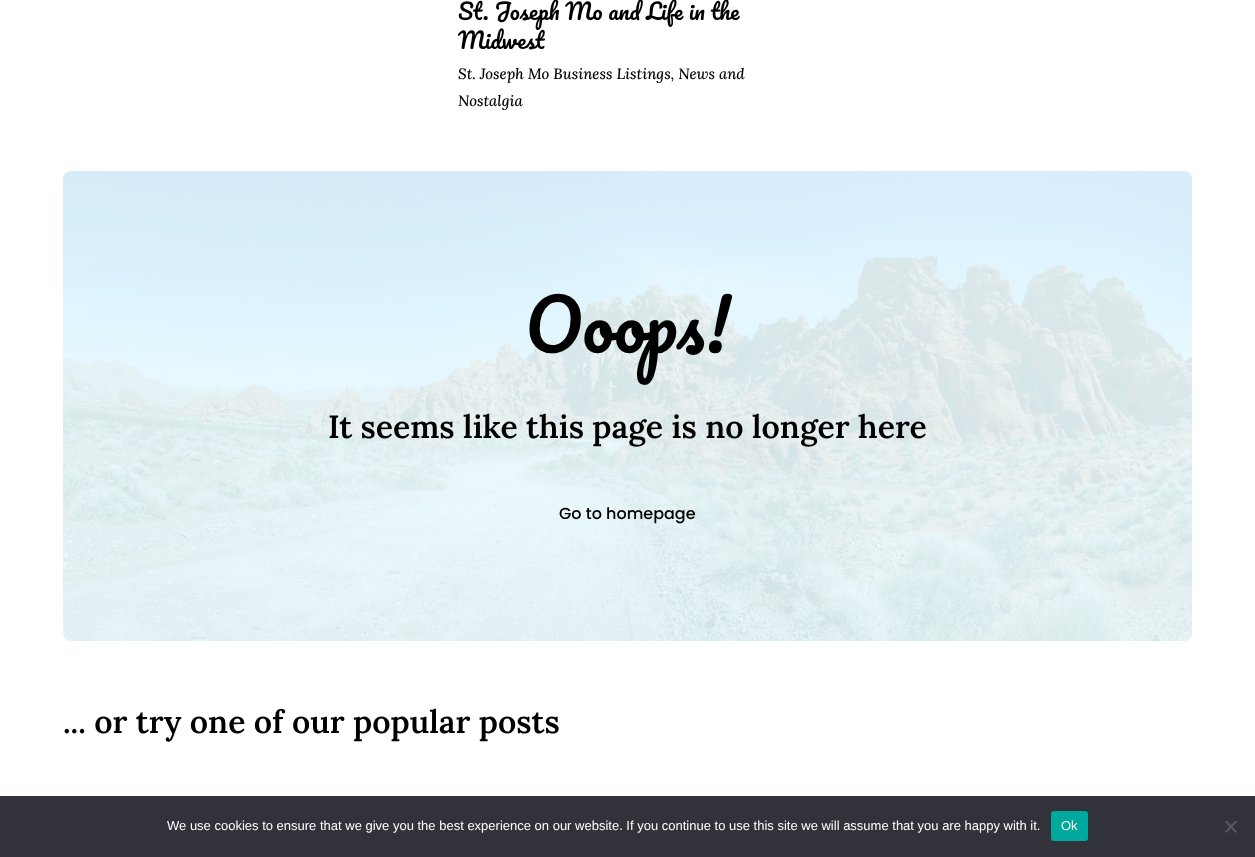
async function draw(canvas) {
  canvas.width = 1255
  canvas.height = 857
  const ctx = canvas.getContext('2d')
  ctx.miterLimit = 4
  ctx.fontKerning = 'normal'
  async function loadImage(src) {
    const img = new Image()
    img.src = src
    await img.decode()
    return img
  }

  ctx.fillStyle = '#fff'
  ctx.fillRect(0, 0, 1255, 857)
  ctx.font = '22px Pacifico'
  ctx.fillStyle = '#000'
  ctx.fillText('St. Joseph Mo and Life in the', 458, 20)
  ctx.fillText('Midwest', 458, 49)
  ctx.font = 'italic 500 15px Lora'
  ctx.fillText('St. Joseph Mo Business Listings, News and', 458, 79)
  ctx.fillText('Nostalgia', 458, 106)
  ctx.drawImage(await loadImage('image0.png'), 63, 171, 1129, 470)
  ctx.font = '70px Pacifico'
  ctx.fillText('Ooops!', 525, 353)
  ctx.font = '600 32px Lora'
  ctx.fillText('It seems like this page is no longer here', 328, 438)
  ctx.font = '500 16px Poppins'
  ctx.fillText('Go to homepage', 559, 519)
  ctx.font = '600 32px Lora'
  ctx.fillText('... or try one of our popular posts', 63, 733)
  ctx.fillStyle = '#32323a'
  ctx.fillRect(0, 796, 1255, 61)
  ctx.font = '13px Liberation Sans'
  ctx.fillStyle = '#fff'
  ctx.fillText('We use cookies to ensure that we give you the best experience on our website. If you continue to use this site we will assume that you are happy with it.', 167, 830)
  ctx.fillStyle = '#00a99d'
  ctx.beginPath()
  ctx.roundRect(1051, 811, 37, 30, 3)
  ctx.fill()
  ctx.fillStyle = '#fff'
  ctx.fillText('Ok', 1061, 830)
  ctx.fillStyle = '#59595d'
  ctx.beginPath()
  ctx.moveTo(1235.5, 820.5)
  ctx.lineTo(1237, 822)
  ctx.lineTo(1226.5, 833)
  ctx.lineTo(1225, 831.5)
  ctx.closePath()
  ctx.fill()
  ctx.beginPath()
  ctx.moveTo(1225, 822)
  ctx.lineTo(1226.5, 820.5)
  ctx.lineTo(1237, 831.5)
  ctx.lineTo(1235.5, 833)
  ctx.closePath()
  ctx.fill()
}

draw(document.querySelector('canvas'))
